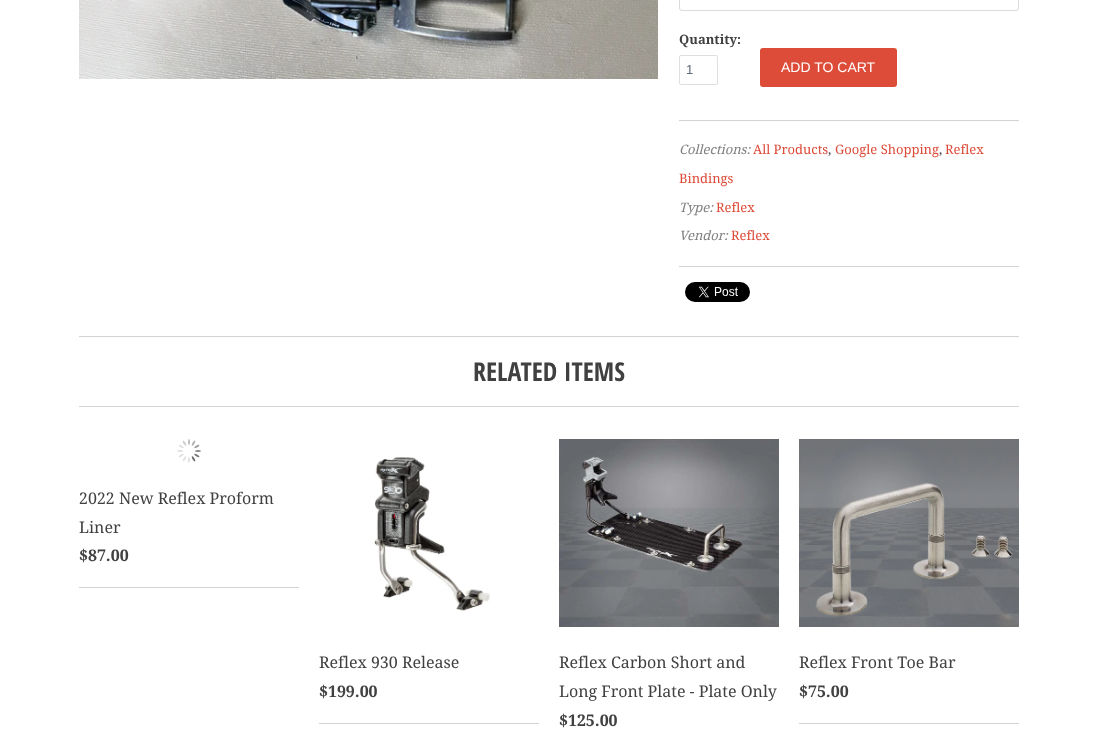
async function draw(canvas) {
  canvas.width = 1097
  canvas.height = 741
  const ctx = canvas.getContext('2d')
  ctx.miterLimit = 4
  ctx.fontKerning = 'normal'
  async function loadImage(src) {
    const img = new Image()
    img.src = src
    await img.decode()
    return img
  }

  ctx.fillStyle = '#fff'
  ctx.fillRect(0, 0, 1097, 741)
  ctx.drawImage(await loadImage('image0.png'), 79, 0, 579, 79)
  ctx.beginPath()
  ctx.roundRect(679.5, -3.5, 339, 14, 2.5)
  ctx.strokeStyle = '#d9dbdc'
  ctx.stroke()
  ctx.font = 'bold 13px Droid Serif'
  ctx.fillStyle = '#404040'
  ctx.fillText('Quantity:', 679, 44)
  ctx.beginPath()
  ctx.roundRect(679.5, 55.5, 38, 29, 1.5)
  ctx.strokeStyle = '#dfdfdf'
  ctx.stroke()
  ctx.font = '13px Liberation Sans'
  ctx.fillStyle = '#5f6a7d'
  ctx.fillText('1', 686, 74)
  ctx.fillStyle = '#dd4b39'
  ctx.beginPath()
  ctx.roundRect(760, 48, 137, 39, 3)
  ctx.fill()
  ctx.font = '14px Liberation Sans'
  ctx.fillStyle = '#fff'
  ctx.fillText('ADD TO CART', 781, 72)
  ctx.fillStyle = '#d3d3d3'
  ctx.fillRect(679, 120, 340, 1)
  ctx.font = 'italic 13px Droid Serif'
  ctx.fillStyle = '#808080'
  ctx.fillText('Collections:', 679, 154)
  ctx.font = '13px Droid Serif'
  ctx.fillStyle = '#dd4b39'
  ctx.fillText('All Products', 753, 154)
  ctx.fillStyle = '#404040'
  ctx.fillText(',', 828, 154)
  ctx.fillStyle = '#dd4b39'
  ctx.fillText('Google Shopping', 835, 154)
  ctx.fillStyle = '#404040'
  ctx.fillText(',', 939, 154)
  ctx.fillStyle = '#dd4b39'
  ctx.fillText('Reflex', 945, 154)
  ctx.fillText('Bindings', 679, 183)
  ctx.font = 'italic 13px Droid Serif'
  ctx.fillStyle = '#808080'
  ctx.fillText('Type:', 679, 212)
  ctx.font = '13px Droid Serif'
  ctx.fillStyle = '#dd4b39'
  ctx.fillText('Reflex', 716, 212)
  ctx.font = 'italic 13px Droid Serif'
  ctx.fillStyle = '#808080'
  ctx.fillText('Vendor:', 679, 240)
  ctx.font = '13px Droid Serif'
  ctx.fillStyle = '#dd4b39'
  ctx.fillText('Reflex', 731, 240)
  ctx.fillStyle = '#d3d3d3'
  ctx.fillRect(679, 266, 340, 1)
  ctx.drawImage(await loadImage('image1.png'), 685, 282, 65, 20)
  ctx.fillRect(79, 336, 940, 1)
  ctx.fillRect(79, 406, 940, 1)
  ctx.font = 'bold 26px Open Sans Condensed'
  ctx.fillStyle = '#404040'
  ctx.fillText('RELATED ITEMS', 473, 381)
  ctx.fillStyle = '#d3d3d3'
  ctx.fillRect(79, 587, 220, 1)
  ctx.drawImage(await loadImage('image2.png'), 177, 439, 24, 24)
  ctx.font = '16px Droid Serif'
  ctx.fillStyle = '#404040'
  ctx.fillText('2022 New Reflex Proform', 79, 504)
  ctx.fillText('Liner', 79, 533)
  ctx.font = 'bold 16px Droid Serif'
  ctx.fillText('$87.00', 79, 561)
  ctx.fillStyle = '#d3d3d3'
  ctx.fillRect(319, 723, 220, 1)
  ctx.drawImage(await loadImage('image3.png'), 374, 457, 116, 154)
  ctx.font = '16px Droid Serif'
  ctx.fillStyle = '#404040'
  ctx.fillText('Reflex 930 Release', 319, 668)
  ctx.font = 'bold 16px Droid Serif'
  ctx.fillText('$199.00', 319, 697)
  ctx.drawImage(await loadImage('image4.png'), 559, 439, 220, 188)
  ctx.font = '16px Droid Serif'
  ctx.fillText('Reflex Carbon Short and', 559, 668)
  ctx.fillText('Long Front Plate - Plate Only', 559, 697)
  ctx.font = 'bold 16px Droid Serif'
  ctx.fillText('$125.00', 559, 726)
  ctx.fillStyle = '#d3d3d3'
  ctx.fillRect(799, 723, 220, 1)
  ctx.drawImage(await loadImage('image5.png'), 799, 439, 220, 188)
  ctx.font = '16px Droid Serif'
  ctx.fillStyle = '#404040'
  ctx.fillText('Reflex Front Toe Bar', 799, 668)
  ctx.font = 'bold 16px Droid Serif'
  ctx.fillText('$75.00', 799, 697)
}

draw(document.querySelector('canvas'))
